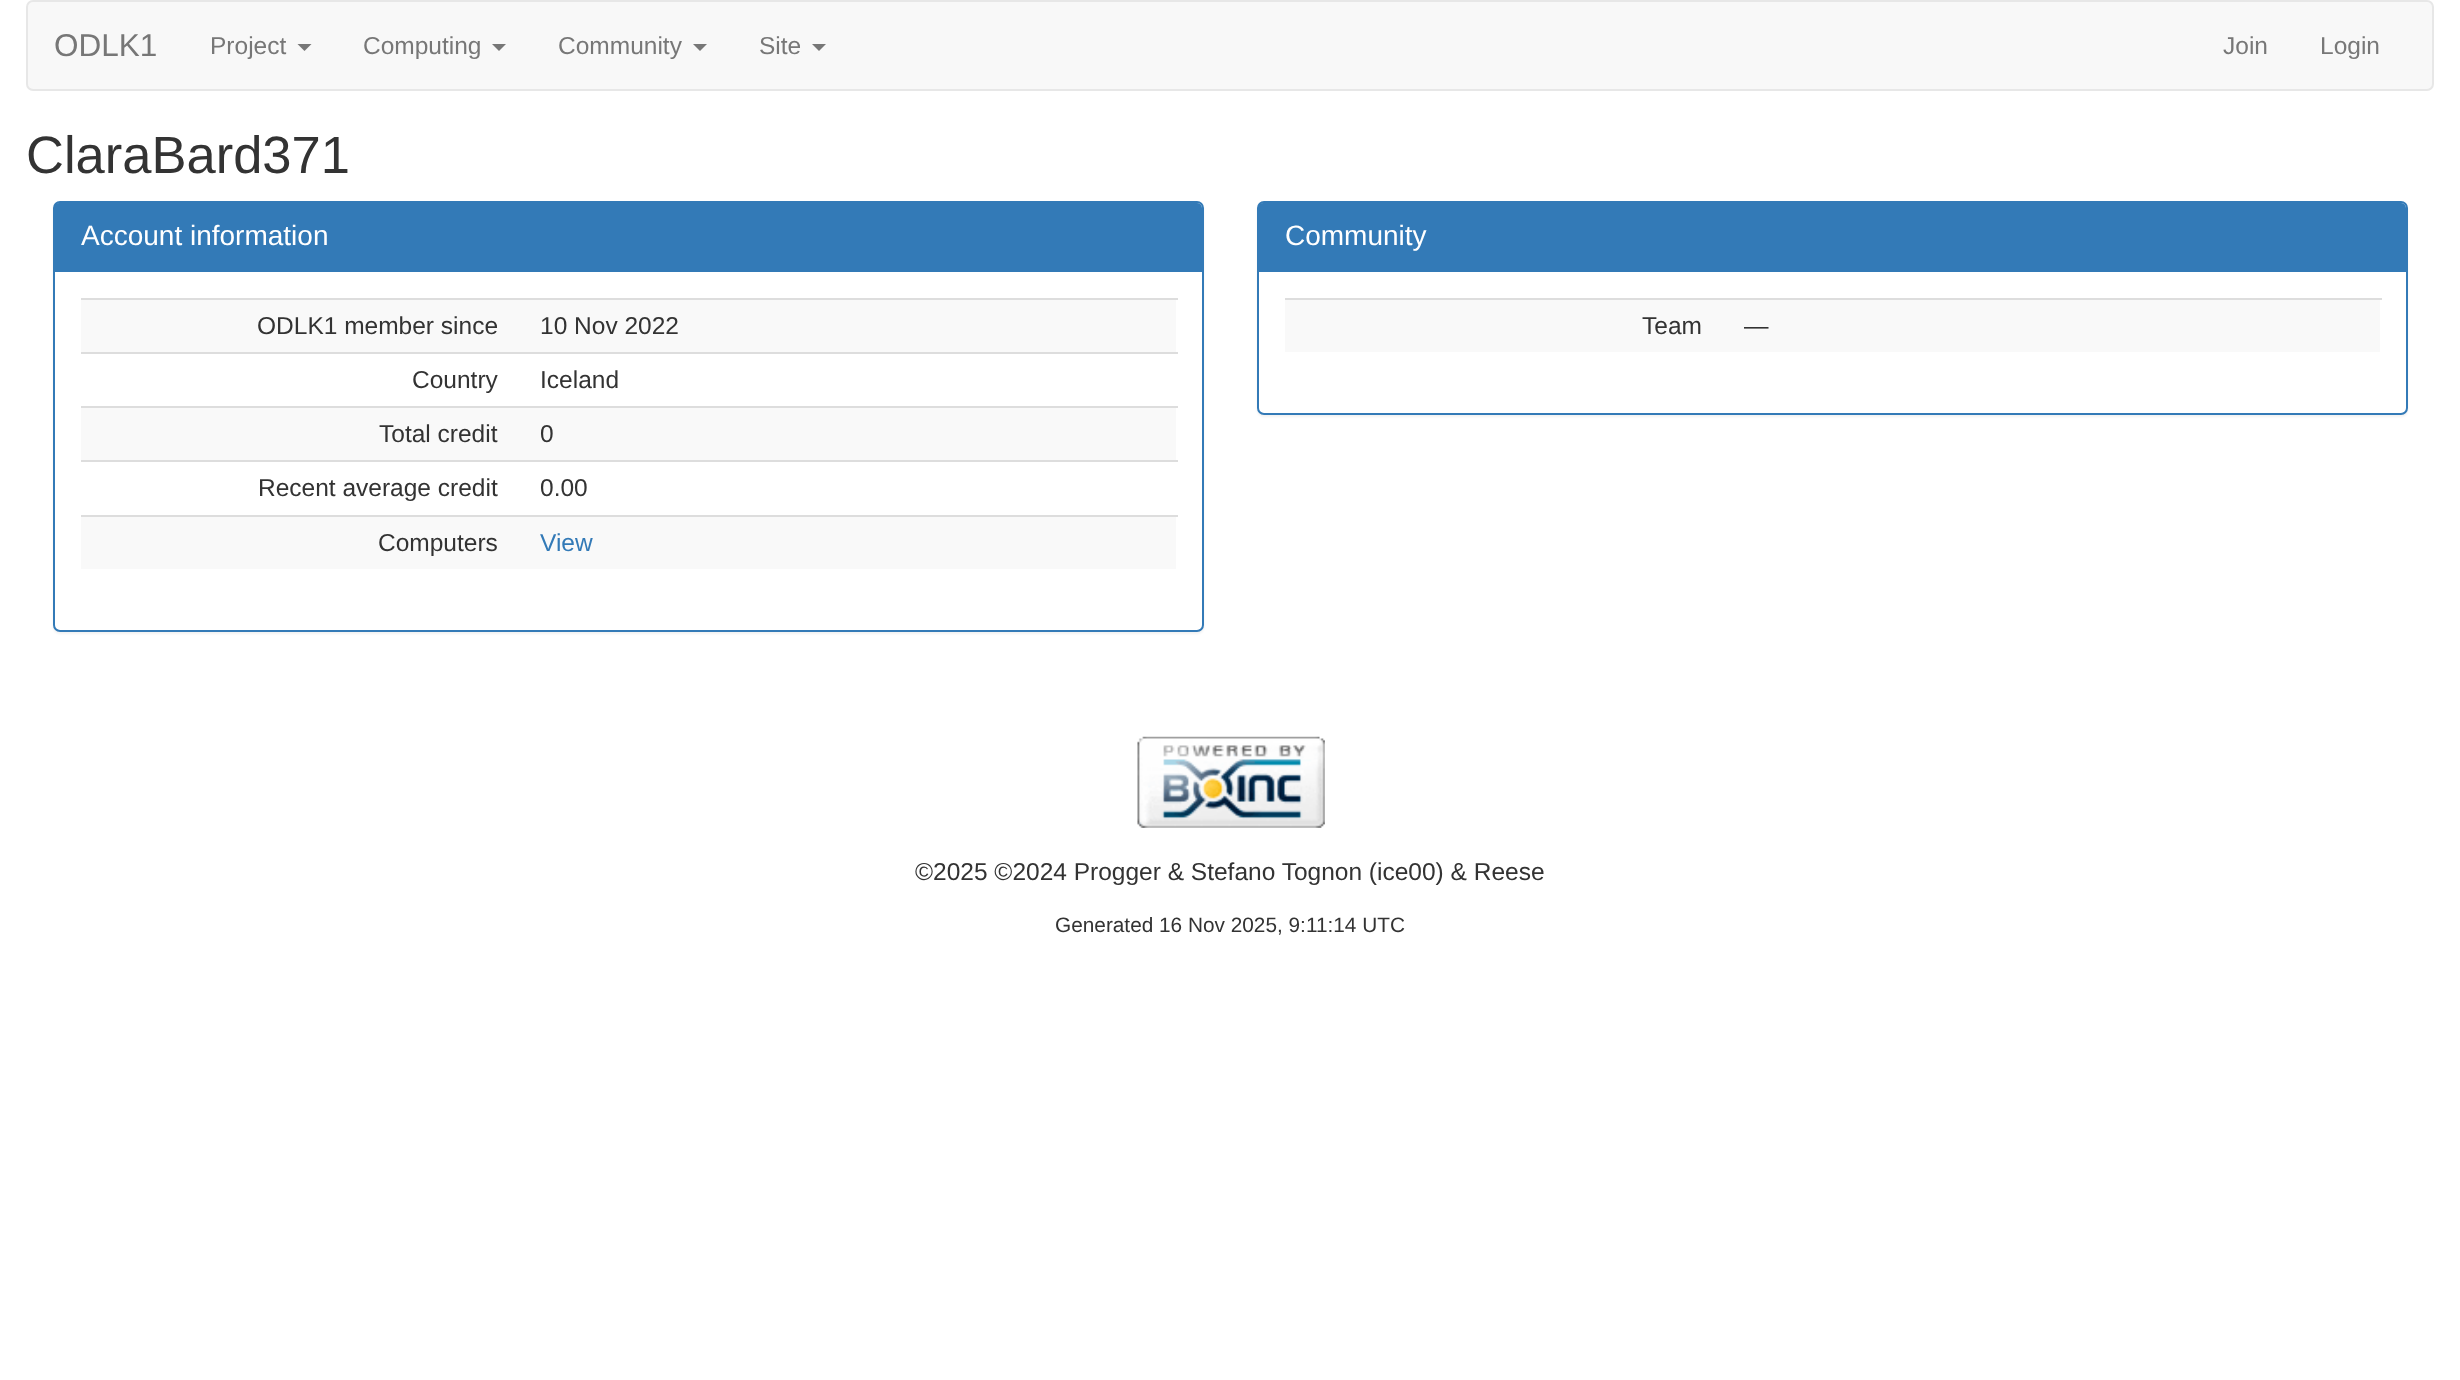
async function draw(canvas) {
  canvas.width = 2460
  canvas.height = 1380
  const ctx = canvas.getContext('2d')
  ctx.miterLimit = 4
  ctx.fontKerning = 'normal'
  async function loadImage(src) {
    const img = new Image()
    img.src = src
    await img.decode()
    return img
  }

  ctx.fillStyle = '#fff'
  ctx.fillRect(0, 0, 2460, 1380)
  ctx.fillStyle = '#f8f8f8'
  ctx.beginPath()
  ctx.roundRect(27, 1, 2406, 89, 6)
  ctx.fill()
  ctx.strokeStyle = '#e7e7e7'
  ctx.lineWidth = 2
  ctx.stroke()
  ctx.font = '31.5px Liberation Sans'
  ctx.fillStyle = '#777'
  ctx.fillText('ODLK1', 54, 56)
  ctx.font = '24.5px Liberation Sans'
  ctx.fillText('Project', 210, 54)
  ctx.beginPath()
  ctx.moveTo(297.5, 44)
  ctx.lineTo(311.5, 44)
  ctx.lineTo(304.5, 51)
  ctx.closePath()
  ctx.fill()
  ctx.fillText('Computing', 363, 54)
  ctx.beginPath()
  ctx.moveTo(492, 44)
  ctx.lineTo(506, 44)
  ctx.lineTo(499, 51)
  ctx.closePath()
  ctx.fill()
  ctx.fillText('Community', 558, 54)
  ctx.beginPath()
  ctx.moveTo(693, 44)
  ctx.lineTo(707, 44)
  ctx.lineTo(700, 51)
  ctx.closePath()
  ctx.fill()
  ctx.fillText('Site', 759, 54)
  ctx.beginPath()
  ctx.moveTo(812, 44)
  ctx.lineTo(826, 44)
  ctx.lineTo(819, 51)
  ctx.closePath()
  ctx.fill()
  ctx.fillText('Join', 2223, 54)
  ctx.fillText('Login', 2320, 54)
  ctx.font = '52.5px Liberation Sans'
  ctx.fillStyle = '#333'
  ctx.fillText('ClaraBard371', 26, 173)
  ctx.fillStyle = '#0000000d'
  ctx.filter = 'blur(1px)'
  ctx.beginPath()
  ctx.roundRect(53, 203, 1151, 431, 7)
  ctx.fill()
  ctx.filter = 'none'
  ctx.fillStyle = '#fff'
  ctx.beginPath()
  ctx.roundRect(54, 202, 1149, 429, 6)
  ctx.fill()
  ctx.strokeStyle = '#337ab7'
  ctx.stroke()
  ctx.fillStyle = '#337ab7'
  ctx.beginPath()
  ctx.roundRect(54, 203, 1148, 68, [5, 5, 0, 0])
  ctx.fill()
  ctx.fillRect(54, 271, 1148, 1)
  ctx.font = '28px Liberation Sans'
  ctx.fillStyle = '#fff'
  ctx.fillText('Account information', 81, 245)
  ctx.fillStyle = '#f9f9f9'
  ctx.fillRect(81, 300, 1095, 52)
  ctx.font = '24.5px Liberation Sans'
  ctx.fillStyle = '#333'
  ctx.fillText('ODLK1 member since', 257, 334)
  ctx.fillStyle = '#ddd'
  ctx.fillRect(81, 298, 1097, 2)
  ctx.fillStyle = '#333'
  ctx.fillText('10 Nov 2022', 540, 334)
  ctx.fillText('Country', 412, 388)
  ctx.fillStyle = '#ddd'
  ctx.fillRect(81, 352, 1097, 2)
  ctx.fillStyle = '#333'
  ctx.fillText('Iceland', 540, 388)
  ctx.fillStyle = '#f9f9f9'
  ctx.fillRect(81, 408, 1095, 52)
  ctx.fillStyle = '#333'
  ctx.fillText('Total credit', 379, 442)
  ctx.fillStyle = '#ddd'
  ctx.fillRect(81, 406, 1097, 2)
  ctx.fillStyle = '#333'
  ctx.fillText('0', 540, 442)
  ctx.fillText('Recent average credit', 258, 496)
  ctx.fillStyle = '#ddd'
  ctx.fillRect(81, 460, 1097, 2)
  ctx.fillStyle = '#333'
  ctx.fillText('0.00', 540, 496)
  ctx.fillStyle = '#f9f9f9'
  ctx.fillRect(81, 517, 1095, 52)
  ctx.fillStyle = '#333'
  ctx.fillText('Computers', 378, 551)
  ctx.fillStyle = '#ddd'
  ctx.fillRect(81, 515, 1097, 2)
  ctx.fillStyle = '#337ab7'
  ctx.fillText('View', 540, 551)
  ctx.fillStyle = '#0000000d'
  ctx.filter = 'blur(1px)'
  ctx.beginPath()
  ctx.roundRect(1257, 203, 1151, 214, 7)
  ctx.fill()
  ctx.filter = 'none'
  ctx.fillStyle = '#fff'
  ctx.beginPath()
  ctx.roundRect(1258, 202, 1149, 212, 6)
  ctx.fill()
  ctx.stroke()
  ctx.fillStyle = '#337ab7'
  ctx.beginPath()
  ctx.roundRect(1258, 203, 1148, 68, [5, 5, 0, 0])
  ctx.fill()
  ctx.fillRect(1258, 271, 1148, 1)
  ctx.font = '28px Liberation Sans'
  ctx.fillStyle = '#fff'
  ctx.fillText('Community', 1285, 245)
  ctx.fillStyle = '#f9f9f9'
  ctx.fillRect(1285, 300, 1095, 52)
  ctx.font = '24.5px Liberation Sans'
  ctx.fillStyle = '#333'
  ctx.fillText('Team', 1642, 334)
  ctx.fillStyle = '#ddd'
  ctx.fillRect(1285, 298, 1097, 2)
  ctx.fillStyle = '#333'
  ctx.fillText('—', 1744, 334)
  ctx.drawImage(await loadImage('image0.png'), 1137, 736, 188, 92)
  ctx.fillText('©2025 ©2024 Progger & Stefano Tognon (ice00) & Reese', 915, 880)
  ctx.font = '20.8px Liberation Sans'
  ctx.fillText('Generated 16 Nov 2025, 9:11:14 UTC', 1055, 932)
}

draw(document.querySelector('canvas'))
